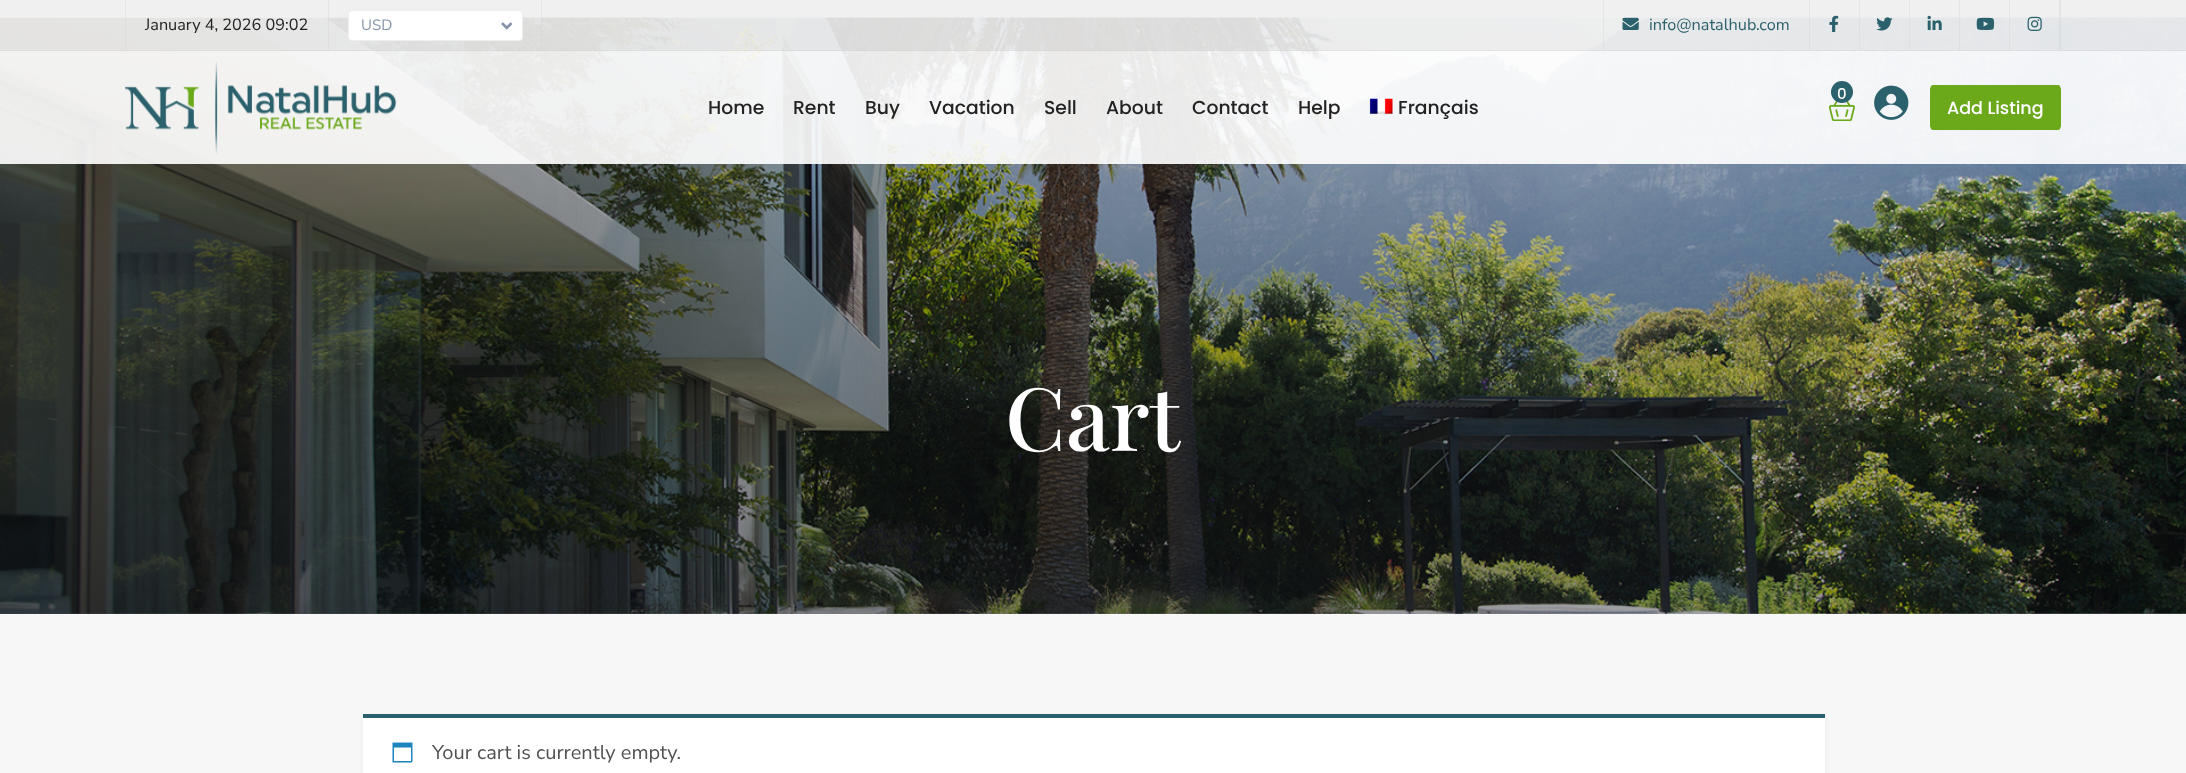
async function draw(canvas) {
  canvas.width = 2186
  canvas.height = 773
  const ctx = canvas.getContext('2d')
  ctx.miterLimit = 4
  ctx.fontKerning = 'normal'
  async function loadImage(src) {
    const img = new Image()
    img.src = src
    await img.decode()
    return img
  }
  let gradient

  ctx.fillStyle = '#f7f7f7'
  ctx.fillRect(0, 0, 2186, 773)
  ctx.drawImage(await loadImage('image11.png'), 0, 17, 2186, 597)
  gradient = ctx.createLinearGradient(1317, -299, 869, 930)
  gradient.addColorStop(0, '#01070e00')
  gradient.addColorStop(1, '#01070eab')
  ctx.fillStyle = gradient
  ctx.fillRect(0, 18, 2186, 596)
  ctx.fillStyle = '#eeeeeee8'
  ctx.fillRect(0, 0, 2186, 51)
  ctx.fillStyle = '#cecece4d'
  ctx.fillRect(0, 50, 2186, 1)
  ctx.fillRect(125, 0, 1, 50)
  ctx.font = '16.25px Nunito Sans'
  ctx.fillStyle = '#222'
  ctx.fillText('January 4, 2026 09:02', 145, 30)
  ctx.fillStyle = '#cecece4d'
  ctx.fillRect(541, 0, 1, 50)
  ctx.fillRect(328, 0, 1, 50)
  ctx.fillStyle = '#fff'
  ctx.beginPath()
  ctx.roundRect(348.5, 10.5, 174, 30, 3.5)
  ctx.fill()
  ctx.strokeStyle = '#eee'
  ctx.stroke()
  ctx.font = '15px Nunito Sans'
  ctx.fillStyle = '#8593a9'
  ctx.fillText('USD', 361, 30)
  ctx.drawImage(await loadImage('image0.png'), 501, 22, 12, 8)
  ctx.fillStyle = '#cecece4d'
  ctx.fillRect(1603, 0, 1, 50)
  ctx.drawImage(await loadImage('image1.png'), 1622, 17, 17, 13)
  ctx.font = '16.25px Nunito Sans'
  ctx.fillStyle = '#2b616c'
  ctx.fillText('info@natalhub.com', 1649, 30)
  ctx.fillStyle = '#cecece4d'
  ctx.fillRect(2060, 0, 1, 50)
  ctx.fillRect(1809, 0, 1, 50)
  ctx.fillRect(1859, 0, 1, 50)
  ctx.drawImage(await loadImage('image2.png'), 1829, 15, 10, 17)
  ctx.fillRect(1909, 0, 1, 50)
  ctx.drawImage(await loadImage('image3.png'), 1876, 17, 17, 14)
  ctx.fillRect(1959, 0, 1, 50)
  ctx.drawImage(await loadImage('image4.png'), 1927, 15, 15, 15)
  ctx.fillRect(2009, 0, 1, 50)
  ctx.drawImage(await loadImage('image5.png'), 1976, 17, 19, 13)
  ctx.fillRect(2059, 0, 1, 50)
  ctx.drawImage(await loadImage('image6.png'), 2027, 16, 15, 15)
  ctx.fillStyle = '#ffffffe8'
  ctx.fillRect(0, 51, 2186, 113)
  ctx.drawImage(await loadImage('image7.png'), 125, 61, 272, 93)
  ctx.font = '500 18.75px Poppins'
  ctx.fillStyle = '#222'
  ctx.fillText('Home', 708, 114)
  ctx.fillText('Rent', 793, 114)
  ctx.fillText('Buy', 865, 114)
  ctx.fillText('Vacation', 929, 114)
  ctx.fillText('Sell', 1044, 114)
  ctx.fillText('About', 1106, 114)
  ctx.fillText('Contact', 1192, 114)
  ctx.fillText('Help', 1298, 114)
  ctx.drawImage(await loadImage('image8.png'), 1369, 98, 24, 16)
  ctx.fillText('Français', 1398, 114)
  ctx.drawImage(await loadImage('image9.png'), 1829, 101, 26, 20)
  ctx.fillStyle = '#2b616c'
  ctx.beginPath()
  ctx.arc(1842, 92, 11, 0, 2 * Math.PI)
  ctx.fill()
  ctx.font = '500 15px Poppins'
  ctx.fillStyle = '#fff'
  ctx.fillText('0', 1837, 99)
  ctx.drawImage(await loadImage('image10.png'), 1874, 85, 35, 35)
  ctx.save()
  ctx.beginPath()
  ctx.roundRect(1930, 85, 131, 45, 4)
  ctx.clip()
  ctx.fillStyle = '#6ba91b'
  ctx.fillRect(1931, 85, 129, 45)
  ctx.restore()
  ctx.beginPath()
  ctx.roundRect(1930.5, 85.5, 130, 44, 3.5)
  ctx.strokeStyle = '#6ba91b'
  ctx.stroke()
  ctx.font = '500 17.5px Poppins'
  ctx.fillText('Add Listing', 1947, 114)
  ctx.font = '500 87.5px Playfair Display'
  ctx.fillText('Cart', 1005, 451)
  ctx.fillStyle = '#0000000f'
  ctx.filter = 'blur(2.5px)'
  ctx.beginPath()
  ctx.rect(363, 716, 1462, 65)
  ctx.fill()
  ctx.filter = 'none'
  ctx.fillStyle = '#fff'
  ctx.fillRect(363, 718, 1462, 55)
  ctx.fillStyle = '#2b616c'
  ctx.fillRect(363, 714, 1462, 4)
  ctx.drawImage(await loadImage('image12.png'), 392, 742, 21, 21)
  ctx.font = '20px Nunito Sans'
  ctx.fillStyle = '#515151'
  ctx.fillText('Your cart is currently empty.', 432, 759)
}

draw(document.querySelector('canvas'))
